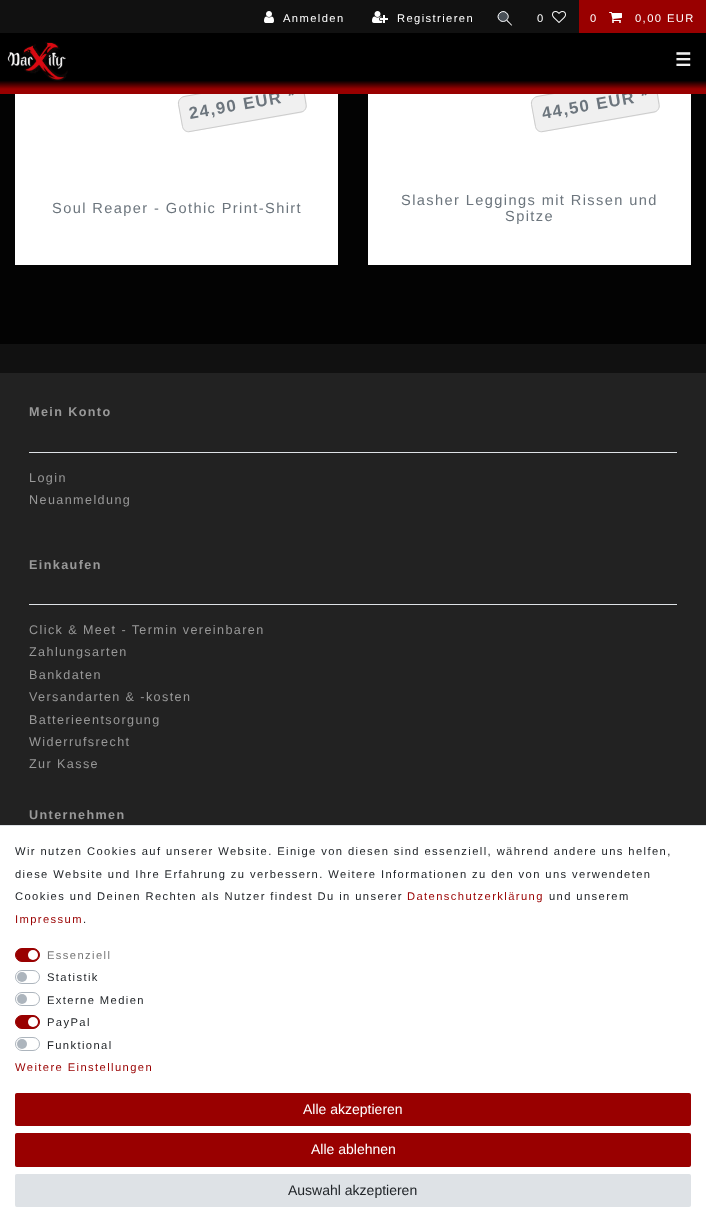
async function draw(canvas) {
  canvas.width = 706
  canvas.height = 1228
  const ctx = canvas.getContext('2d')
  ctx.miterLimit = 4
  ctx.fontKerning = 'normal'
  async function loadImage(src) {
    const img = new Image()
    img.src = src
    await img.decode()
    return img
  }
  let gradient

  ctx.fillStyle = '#111'
  ctx.fillRect(0, 0, 706, 1228)
  ctx.drawImage(await loadImage('image0.png'), 264, 11, 10, 12)
  ctx.letterSpacing = '1.4px'
  ctx.font = '11.2px Liberation Sans'
  ctx.fillStyle = '#fff'
  ctx.fillText('Anmelden', 283, 22)
  ctx.drawImage(await loadImage('image1.png'), 372, 11, 16, 12)
  ctx.fillText('Registrieren', 397, 22)
  ctx.beginPath()
  ctx.moveTo(511.5, 25.5)
  ctx.bezierCurveTo(510, 24, 501, 15.5, 501.5, 15)
  ctx.lineTo(502, 14.5)
  ctx.lineTo(512, 25)
  ctx.bezierCurveTo(512.5, 25.5, 511.5, 25.5, 511.5, 25.5)
  ctx.closePath()
  ctx.fill()
  ctx.fillStyle = '#495057'
  ctx.beginPath()
  ctx.moveTo(499.5, 20.5)
  ctx.bezierCurveTo(494, 15.5, 502, 7.5, 507, 12.5)
  ctx.bezierCurveTo(512, 17.5, 504.5, 25.5, 499.5, 20.5)
  ctx.closePath()
  ctx.fill()
  ctx.beginPath()
  ctx.moveTo(499.5, 20)
  ctx.bezierCurveTo(495, 15.5, 502, 8.5, 506.5, 13)
  ctx.bezierCurveTo(511.5, 17.5, 504.5, 24.5, 499.5, 20)
  ctx.closePath()
  ctx.strokeStyle = '#fff'
  ctx.stroke()
  ctx.fillStyle = '#fff'
  ctx.fillText('0', 537, 22)
  ctx.drawImage(await loadImage('image2.png'), 552, 11, 14, 12)
  ctx.fillStyle = '#900'
  ctx.fillRect(579, 0, 127, 33)
  ctx.fillStyle = '#fff'
  ctx.fillText('0', 590, 22)
  ctx.drawImage(await loadImage('image3.png'), 609, 12, 13, 11)
  ctx.fillText('0,00 EUR', 635, 22)
  ctx.fillStyle = '#030303'
  ctx.fillRect(0, 94, 706, 250)
  ctx.fillStyle = '#fff'
  ctx.fillRect(15, 94, 323, 171)
  ctx.fillStyle = '#f0f0f0'
  ctx.beginPath()
  ctx.moveTo(184, 96)
  ctx.lineTo(295, 77)
  ctx.bezierCurveTo(298, 76, 302, 79, 303, 82)
  ctx.lineTo(307, 104)
  ctx.bezierCurveTo(307, 108, 305, 112, 301, 113)
  ctx.lineTo(190, 132)
  ctx.bezierCurveTo(186, 133, 183, 130, 182, 126)
  ctx.lineTo(178, 104)
  ctx.bezierCurveTo(177, 101, 180, 97, 184, 96)
  ctx.closePath()
  ctx.fill()
  ctx.beginPath()
  ctx.moveTo(184, 96.5)
  ctx.lineTo(295, 77)
  ctx.bezierCurveTo(298.5, 76.5, 301.5, 79, 302.5, 82.5)
  ctx.lineTo(306, 104.5)
  ctx.bezierCurveTo(307, 108, 304.5, 111.5, 301, 112)
  ctx.lineTo(190, 131.5)
  ctx.bezierCurveTo(186.5, 132.5, 183, 130, 182.5, 126.5)
  ctx.lineTo(178.5, 104.5)
  ctx.bezierCurveTo(178, 100.5, 180.5, 97.5, 184, 96.5)
  ctx.closePath()
  ctx.strokeStyle = '#ccc'
  ctx.stroke()
  ctx.fillStyle = '#fff'
  ctx.fillRect(368, 94, 323, 171)
  ctx.fillStyle = '#f0f0f0'
  ctx.beginPath()
  ctx.moveTo(537, 96)
  ctx.lineTo(648, 77)
  ctx.bezierCurveTo(651, 76, 655, 79, 656, 82)
  ctx.lineTo(660, 104)
  ctx.bezierCurveTo(660, 108, 658, 112, 654, 113)
  ctx.lineTo(543, 132)
  ctx.bezierCurveTo(539, 133, 536, 130, 535, 126)
  ctx.lineTo(531, 104)
  ctx.bezierCurveTo(530, 101, 533, 97, 537, 96)
  ctx.closePath()
  ctx.fill()
  ctx.beginPath()
  ctx.moveTo(537, 96.5)
  ctx.lineTo(648, 77)
  ctx.bezierCurveTo(651.5, 76.5, 654.5, 79, 655.5, 82.5)
  ctx.lineTo(659, 104.5)
  ctx.bezierCurveTo(660, 108, 657.5, 111.5, 654, 112)
  ctx.lineTo(543, 131.5)
  ctx.bezierCurveTo(539.5, 132.5, 536, 130, 535.5, 126.5)
  ctx.lineTo(531.5, 104.5)
  ctx.bezierCurveTo(531, 100.5, 533.5, 97.5, 537, 96.5)
  ctx.closePath()
  ctx.stroke()
  gradient = ctx.createLinearGradient(353, 33, 353, 89)
  gradient.addColorStop(0, '#000')
  gradient.addColorStop(0.85, '#000')
  gradient.addColorStop(1, '#900')
  ctx.fillStyle = gradient
  ctx.fillRect(0, 33, 706, 56)
  ctx.font = 'bold 16.75px Liberation Sans'
  ctx.fillStyle = '#6c757d'
  ctx.save()
  ctx.translate(190, 119)
  ctx.rotate(-10 * Math.PI / 180)
  ctx.fillText('24,90 EUR *', 0, 0)
  ctx.restore()
  ctx.save()
  ctx.translate(543, 119)
  ctx.rotate(-10 * Math.PI / 180)
  ctx.fillText('44,50 EUR *', 0, 0)
  ctx.restore()
  ctx.fillStyle = '#900'
  ctx.fillRect(0, 89, 706, 5)
  ctx.drawImage(await loadImage('image4.png'), 7, 42, 61, 39)
  ctx.letterSpacing = '0px'
  ctx.font = 'bold 18px DejaVu Sans'
  ctx.fillStyle = '#f0f0f0'
  ctx.fillText('☰', 675, 66)
  ctx.letterSpacing = '1.4px'
  ctx.font = '14.6px Liberation Sans'
  ctx.fillStyle = '#6c757d'
  ctx.fillText('Soul Reaper - Gothic Print-Shirt', 52, 213)
  ctx.fillText('Slasher Leggings mit Rissen und', 401, 205)
  ctx.fillText('Spitze', 505, 221)
  ctx.fillStyle = '#222'
  ctx.fillRect(0, 373, 706, 452)
  ctx.font = 'bold 12.6px Liberation Sans'
  ctx.fillStyle = '#999'
  ctx.fillText('Mein Konto', 29, 416)
  ctx.fillStyle = '#dee2e6'
  ctx.fillRect(29, 452, 648, 1)
  ctx.font = '12.6px Liberation Sans'
  ctx.fillStyle = '#999'
  ctx.fillText('Login', 29, 482)
  ctx.fillText('Neuanmeldung', 29, 504)
  ctx.font = 'bold 12.6px Liberation Sans'
  ctx.fillText('Einkaufen', 29, 569)
  ctx.fillStyle = '#dee2e6'
  ctx.fillRect(29, 604, 648, 1)
  ctx.font = '12.6px Liberation Sans'
  ctx.fillStyle = '#999'
  ctx.fillText('Click & Meet - Termin vereinbaren', 29, 634)
  ctx.fillText('Zahlungsarten', 29, 656)
  ctx.fillText('Bankdaten', 29, 679)
  ctx.fillText('Versandarten & -kosten', 29, 701)
  ctx.fillText('Batterieentsorgung', 29, 724)
  ctx.fillText('Widerrufsrecht', 29, 746)
  ctx.fillText('Zur Kasse', 29, 768)
  ctx.font = 'bold 12.6px Liberation Sans'
  ctx.fillText('Unternehmen', 29, 819)
  ctx.fillStyle = '#fff'
  ctx.fillRect(0, 826, 706, 402)
  ctx.fillStyle = '#dee2e6'
  ctx.fillRect(0, 825, 706, 1)
  ctx.font = '11.2px Liberation Sans'
  ctx.fillStyle = '#212529'
  ctx.fillText('Wir nutzen Cookies auf unserer Website. Einige von diesen sind essenziell, während andere uns helfen,', 15, 855)
  ctx.fillText('diese Website und Ihre Erfahrung zu verbessern. Weitere Informationen zu den von uns verwendeten', 15, 878)
  ctx.fillText('Cookies und Deinen Rechten als Nutzer findest Du in unserer', 15, 900)
  ctx.fillStyle = '#900'
  ctx.fillText('Datenschutzerklärung', 407, 900)
  ctx.fillStyle = '#212529'
  ctx.fillText('und unserem', 549, 900)
  ctx.fillStyle = '#900'
  ctx.fillText('Impressum', 15, 923)
  ctx.fillStyle = '#212529'
  ctx.fillText('.', 83, 923)
  ctx.fillStyle = '#900'
  ctx.beginPath()
  ctx.roundRect(15.5, 948.5, 24, 13, 6.5)
  ctx.fill()
  ctx.strokeStyle = '#900'
  ctx.stroke()
  ctx.fillStyle = '#fff'
  ctx.beginPath()
  ctx.arc(33, 955, 5, 0, 2 * Math.PI)
  ctx.fill()
  ctx.fillStyle = '#767676'
  ctx.fillText('Essenziell', 47, 959)
  ctx.beginPath()
  ctx.roundRect(15.5, 970.5, 24, 13, 6.5)
  ctx.strokeStyle = '#adb5bd'
  ctx.stroke()
  ctx.fillStyle = '#adb5bd'
  ctx.beginPath()
  ctx.arc(22, 977, 5, 0, 2 * Math.PI)
  ctx.fill()
  ctx.fillStyle = '#212529'
  ctx.fillText('Statistik', 47, 981)
  ctx.beginPath()
  ctx.roundRect(15.5, 992.5, 24, 13, 6.5)
  ctx.stroke()
  ctx.fillStyle = '#adb5bd'
  ctx.beginPath()
  ctx.arc(22, 999, 5, 0, 2 * Math.PI)
  ctx.fill()
  ctx.fillStyle = '#212529'
  ctx.fillText('Externe Medien', 47, 1004)
  ctx.fillStyle = '#900'
  ctx.beginPath()
  ctx.roundRect(15.5, 1015.5, 24, 13, 6.5)
  ctx.fill()
  ctx.strokeStyle = '#900'
  ctx.stroke()
  ctx.fillStyle = '#fff'
  ctx.beginPath()
  ctx.arc(33, 1022, 5, 0, 2 * Math.PI)
  ctx.fill()
  ctx.fillStyle = '#212529'
  ctx.fillText('PayPal', 47, 1026)
  ctx.beginPath()
  ctx.roundRect(15.5, 1037.5, 24, 13, 6.5)
  ctx.strokeStyle = '#adb5bd'
  ctx.stroke()
  ctx.fillStyle = '#adb5bd'
  ctx.beginPath()
  ctx.arc(22, 1044, 5, 0, 2 * Math.PI)
  ctx.fill()
  ctx.fillStyle = '#212529'
  ctx.fillText('Funktional', 47, 1049)
  ctx.fillStyle = '#900'
  ctx.fillText('Weitere Einstellungen', 15, 1071)
  ctx.beginPath()
  ctx.roundRect(15.5, 1093.5, 675, 32, 1)
  ctx.fill()
  ctx.strokeStyle = '#900'
  ctx.stroke()
  ctx.letterSpacing = '0px'
  ctx.font = '14px Liberation Sans'
  ctx.fillStyle = '#fff'
  ctx.fillText('Alle akzeptieren', 303, 1114)
  ctx.fillStyle = '#900'
  ctx.beginPath()
  ctx.roundRect(15.5, 1133.5, 675, 33, 1)
  ctx.fill()
  ctx.stroke()
  ctx.fillStyle = '#fff'
  ctx.fillText('Alle ablehnen', 311, 1154)
  ctx.fillStyle = '#dee2e6'
  ctx.beginPath()
  ctx.roundRect(15.5, 1174.5, 675, 32, 1)
  ctx.fill()
  ctx.strokeStyle = '#dee2e6'
  ctx.stroke()
  ctx.fillStyle = '#212529'
  ctx.fillText('Auswahl akzeptieren', 288, 1195)
}

draw(document.querySelector('canvas'))
